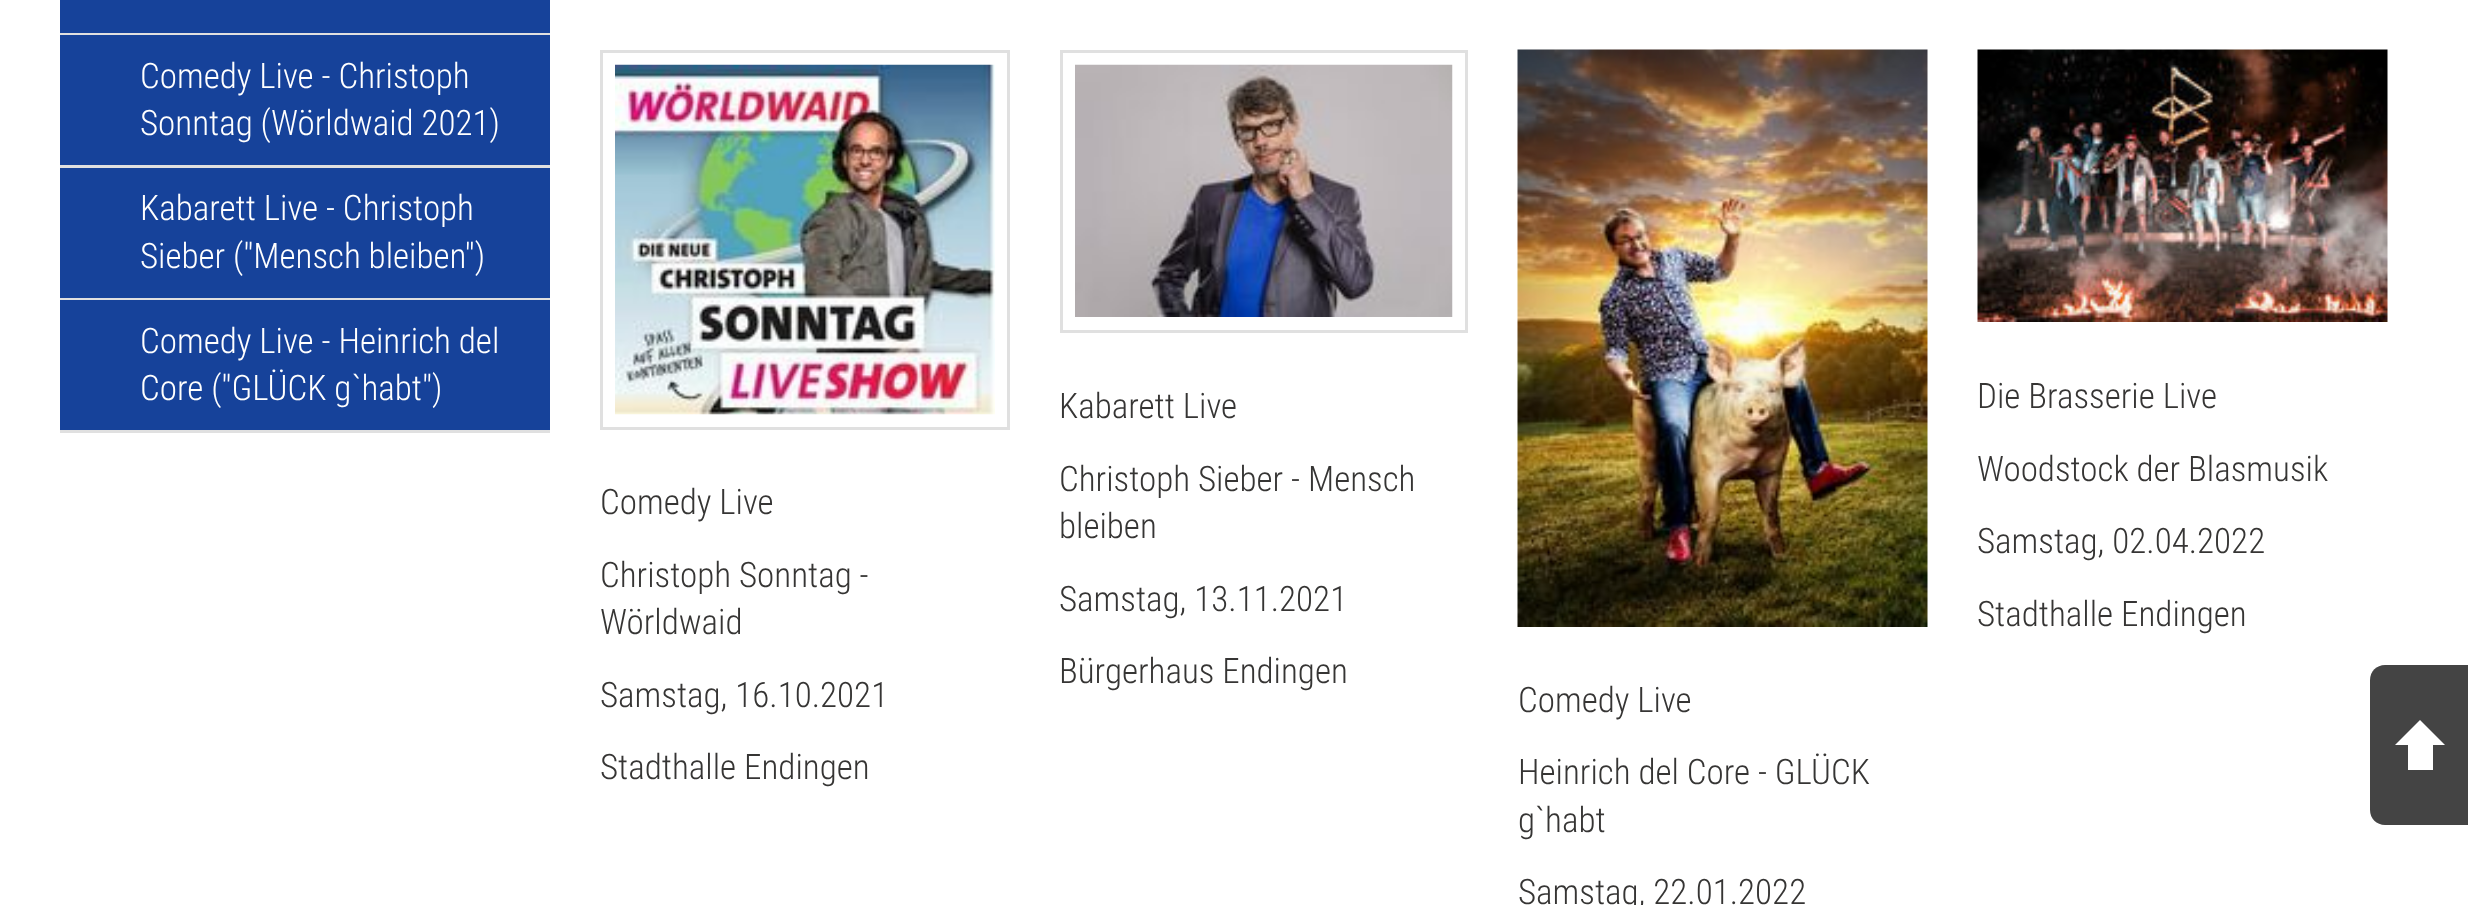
async function draw(canvas) {
  canvas.width = 2468
  canvas.height = 905
  const ctx = canvas.getContext('2d')
  ctx.miterLimit = 4
  ctx.fontKerning = 'normal'
  async function loadImage(src) {
    const img = new Image()
    img.src = src
    await img.decode()
    return img
  }

  ctx.fillStyle = '#fff'
  ctx.fillRect(0, 0, 2468, 905)
  ctx.fillStyle = '#16429a'
  ctx.fillRect(60, 0, 490, 33)
  ctx.fillStyle = '#e0e0e0'
  ctx.fillRect(60, 33, 490, 2)
  ctx.fillStyle = '#16429a'
  ctx.fillRect(60, 35, 490, 130)
  ctx.fillStyle = '#e0e0e0'
  ctx.fillRect(60, 165, 490, 3)
  ctx.font = '300 35px Roboto Condensed'
  ctx.fillStyle = '#fff'
  ctx.fillText('Comedy Live - Christoph', 140, 88)
  ctx.fillText('Sonntag (Wörldwaid 2021)', 140, 135)
  ctx.fillStyle = '#16429a'
  ctx.fillRect(60, 168, 490, 130)
  ctx.fillStyle = '#e0e0e0'
  ctx.fillRect(60, 298, 490, 2)
  ctx.fillStyle = '#fff'
  ctx.fillText('Kabarett Live - Christoph', 140, 220)
  ctx.fillText('Sieber ("Mensch bleiben")', 140, 268)
  ctx.fillStyle = '#16429a'
  ctx.fillRect(60, 300, 490, 130)
  ctx.fillStyle = '#e0e0e0'
  ctx.fillRect(60, 430, 490, 3)
  ctx.fillStyle = '#fff'
  ctx.fillText('Comedy Live - Heinrich del', 140, 353)
  ctx.fillText('Core ("GLÜCK g`habt")', 140, 400)
  ctx.strokeStyle = '#e0e0e0'
  ctx.lineWidth = 3
  ctx.strokeRect(601.5, 51.5, 407, 377)
  ctx.drawImage(await loadImage('image0.png'), 615, 64, 380, 351)
  ctx.fillStyle = '#363534'
  ctx.fillText('Comedy Live', 600, 514)
  ctx.fillText('Christoph Sonntag -', 600, 587)
  ctx.fillText('Wörldwaid', 600, 634)
  ctx.fillText('Samstag, 16.10.2021', 600, 707)
  ctx.fillText('Stadthalle Endingen', 600, 779)
  ctx.strokeRect(1061.5, 51.5, 405, 280)
  ctx.drawImage(await loadImage('image1.png'), 1075, 64, 378, 253)
  ctx.fillText('Kabarett Live', 1059, 418)
  ctx.fillText('Christoph Sieber - Mensch', 1059, 491)
  ctx.fillText('bleiben', 1059, 538)
  ctx.fillText('Samstag, 13.11.2021', 1059, 611)
  ctx.fillText('Bürgerhaus Endingen', 1059, 683)
  ctx.drawImage(await loadImage('image2.png'), 1517, 49, 411, 578)
  ctx.fillText('Comedy Live', 1518, 712)
  ctx.fillText('Heinrich del Core - GLÜCK', 1518, 784)
  ctx.fillText('g`habt', 1518, 832)
  ctx.fillText('Samstag, 22.01.2022', 1518, 904)
  ctx.drawImage(await loadImage('image3.png'), 1977, 49, 411, 273)
  ctx.fillText('Die Brasserie Live', 1977, 408)
  ctx.fillText('Woodstock der Blasmusik', 1977, 481)
  ctx.fillText('Samstag, 02.04.2022', 1977, 553)
  ctx.fillText('Stadthalle Endingen', 1977, 626)
  ctx.fillStyle = '#444'
  ctx.beginPath()
  ctx.moveTo(2385, 665)
  ctx.lineTo(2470, 665)
  ctx.lineTo(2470, 825)
  ctx.lineTo(2385, 825)
  ctx.bezierCurveTo(2376.5, 825, 2370, 818.5, 2370, 810)
  ctx.lineTo(2370, 680)
  ctx.bezierCurveTo(2370, 671.5, 2376.5, 665, 2385, 665)
  ctx.closePath()
  ctx.fill()
  ctx.fillStyle = '#fff'
  ctx.beginPath()
  ctx.moveTo(2445, 745)
  ctx.lineTo(2395, 745)
  ctx.lineTo(2420, 720)
  ctx.closePath()
  ctx.fill()
  ctx.fillRect(2408, 745, 25, 25)
}

draw(document.querySelector('canvas'))
